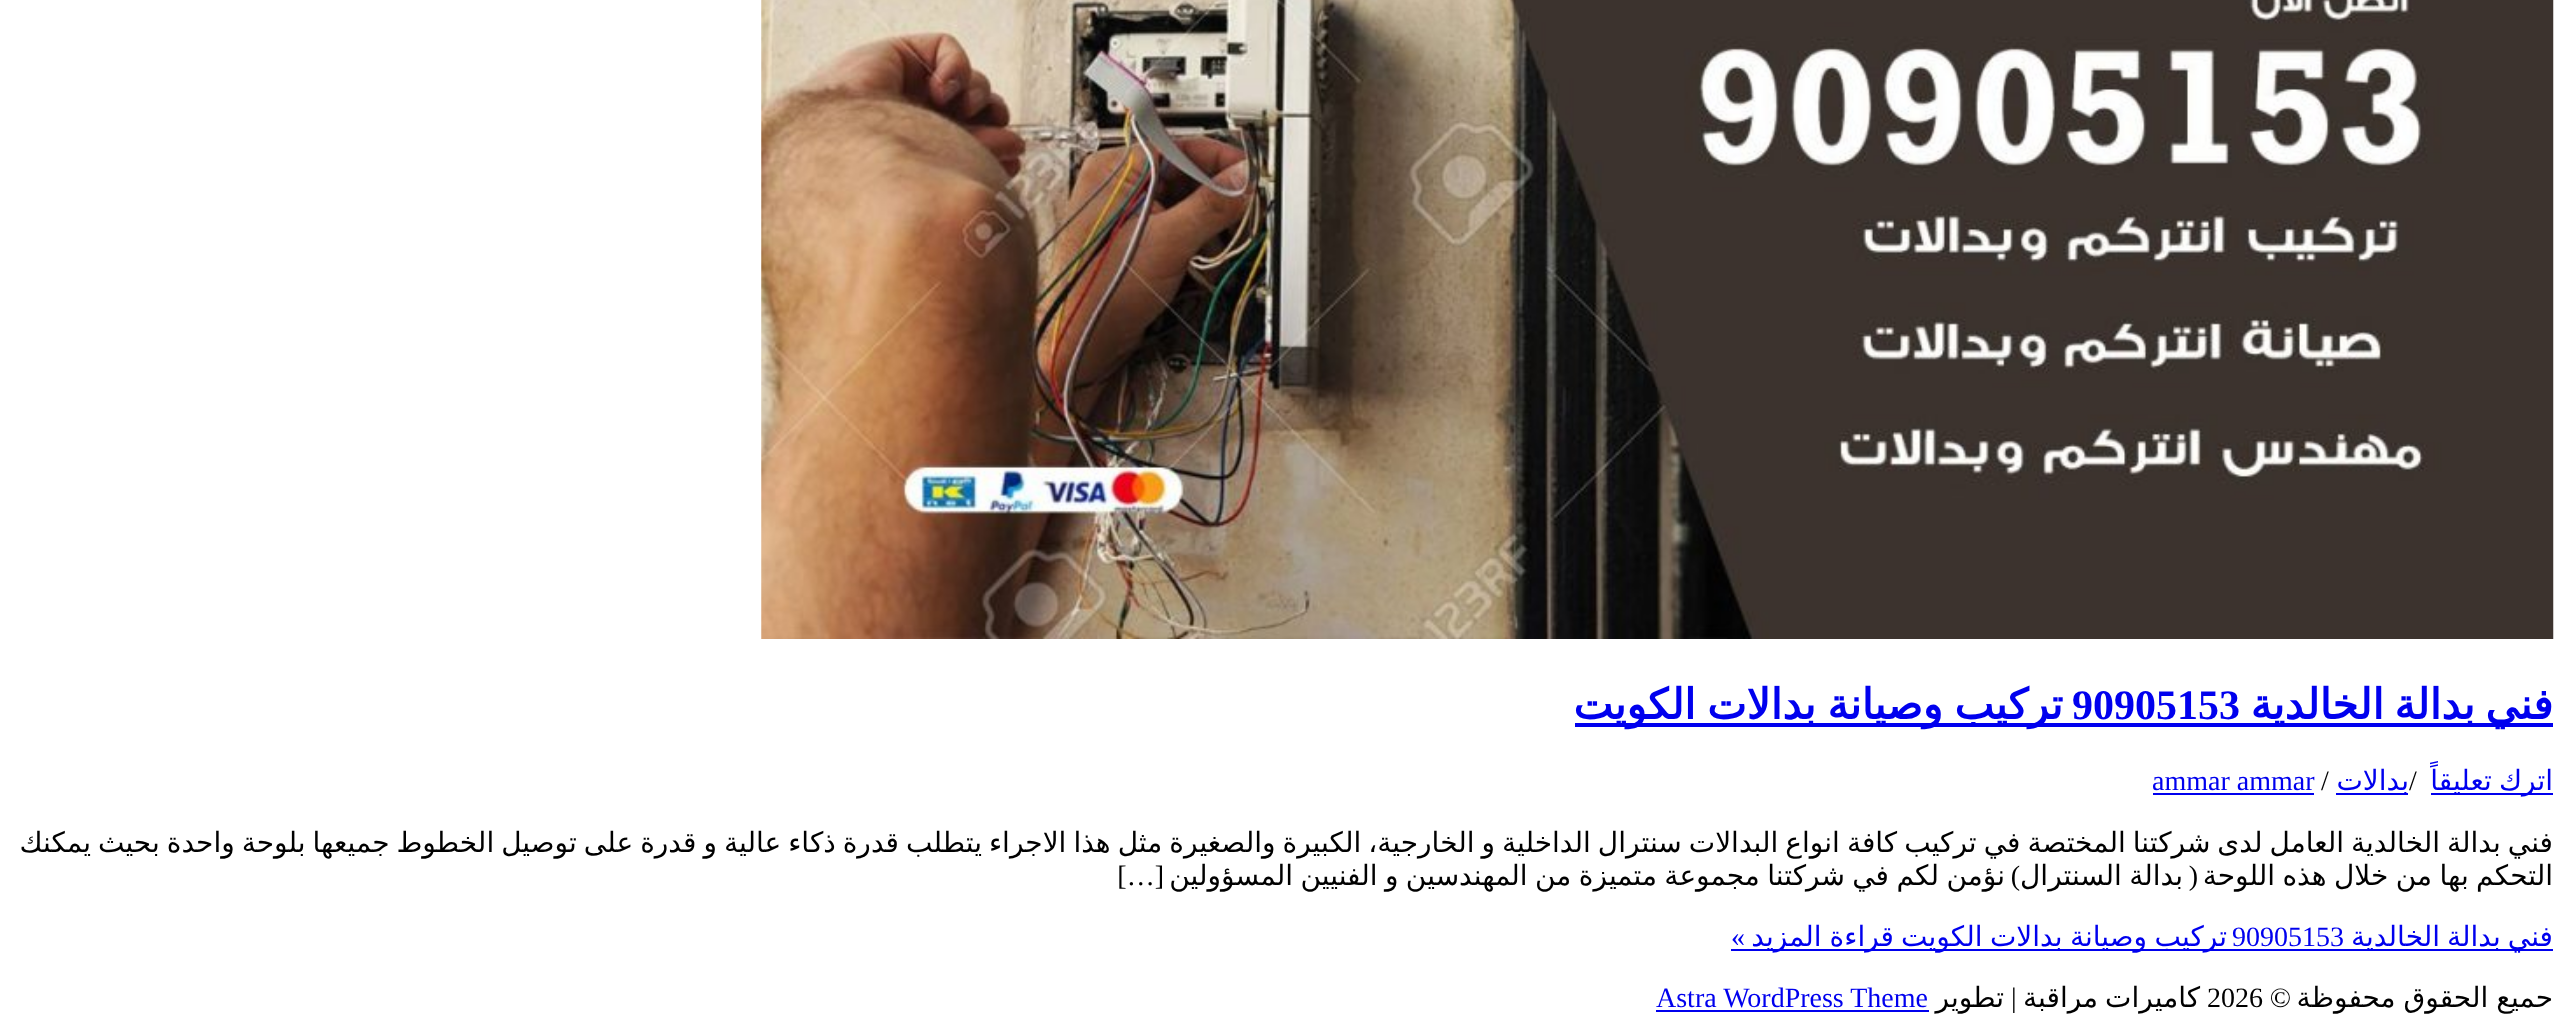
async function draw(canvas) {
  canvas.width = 2566
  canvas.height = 1028
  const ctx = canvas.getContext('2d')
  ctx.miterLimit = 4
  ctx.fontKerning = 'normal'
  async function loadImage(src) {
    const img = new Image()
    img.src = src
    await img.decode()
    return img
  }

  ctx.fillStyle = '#fff'
  ctx.fillRect(0, 0, 2566, 1028)
  ctx.drawImage(await loadImage('image0.png'), 761, 0, 1793, 639)
  ctx.fillStyle = '#00e'
  ctx.fillRect(1575, 723, 978, 4)
  ctx.wordSpacing = '-3px'
  ctx.direction = 'rtl'
  ctx.font = 'bold 42px DejaVu Sans'
  ctx.fillText('فني بدالة الخالدية', 2553, 719)
  ctx.wordSpacing = '0px'
  ctx.direction = 'ltr'
  ctx.font = 'bold 42px Liberation Serif'
  ctx.fillText('90905153', 2072, 719)
  ctx.wordSpacing = '-2px'
  ctx.direction = 'rtl'
  ctx.font = 'bold 42px DejaVu Sans'
  ctx.fillText('تركيب وصيانة بدالات الكويت', 2063, 719)
  ctx.fillRect(2431, 793, 122, 2)
  ctx.wordSpacing = '-1.9px'
  ctx.font = '28px DejaVu Sans'
  ctx.fillText('اترك تعليقاً', 2553, 790)
  ctx.wordSpacing = '0px'
  ctx.direction = 'ltr'
  ctx.font = '28px Liberation Serif'
  ctx.fillStyle = '#000'
  ctx.fillText('/', 2409, 790)
  ctx.fillStyle = '#00e'
  ctx.fillRect(2336, 793, 72, 2)
  ctx.direction = 'rtl'
  ctx.font = '28px DejaVu Sans'
  ctx.fillText('بدالات', 2409, 790)
  ctx.direction = 'ltr'
  ctx.font = '28px Liberation Serif'
  ctx.fillStyle = '#000'
  ctx.fillText('/', 2321, 790)
  ctx.fillStyle = '#00e'
  ctx.fillText('ammar ammar', 2152, 790)
  ctx.fillRect(2153, 793, 161, 2)
  ctx.wordSpacing = '-1.9px'
  ctx.direction = 'rtl'
  ctx.font = '28px DejaVu Sans'
  ctx.fillStyle = '#000'
  ctx.fillText('فني بدالة الخالدية العامل لدى شركتنا المختصة في تركيب كافة انواع البدالات سنترال الداخلية و الخارجية، الكبيرة والصغيرة مثل هذا الاجراء يتطلب قدرة ذكاء عالية و قدرة على توصيل الخطوط جميعها بلوحة واحدة بحيث يمكنك', 2553, 852)
  ctx.wordSpacing = '-1.5px'
  ctx.fillText('التحكم بها من خلال هذه اللوحة', 2553, 885)
  ctx.fillText('بدالة السنترال', 2183, 885)
  ctx.fillText('نؤمن لكم في شركتنا مجموعة متميزة من المهندسين و الفنيين المسؤولين', 2005, 885)
  ctx.wordSpacing = '0px'
  ctx.font = '28px Liberation Serif'
  ctx.fillText('[…]', 1164, 885)
  ctx.fillText('(', 2198, 885)
  ctx.fillText(')', 2020, 885)
  ctx.fillStyle = '#00e'
  ctx.fillRect(1731, 949, 822, 2)
  ctx.wordSpacing = '-1.9px'
  ctx.font = '28px DejaVu Sans'
  ctx.fillText('فني بدالة الخالدية', 2553, 946)
  ctx.wordSpacing = '0px'
  ctx.direction = 'ltr'
  ctx.font = '28px Liberation Serif'
  ctx.fillText('90905153', 2232, 946)
  ctx.wordSpacing = '-1.5px'
  ctx.direction = 'rtl'
  ctx.font = '28px DejaVu Sans'
  ctx.fillText('تركيب وصيانة بدالات الكويت', 2227, 946)
  ctx.wordSpacing = '-1px'
  ctx.fillText('قراءة المزيد', 1894, 946)
  ctx.wordSpacing = '0px'
  ctx.font = '28px Liberation Serif'
  ctx.fillText('»', 1745, 946)
  ctx.wordSpacing = '-1px'
  ctx.font = '28px DejaVu Sans'
  ctx.fillStyle = '#000'
  ctx.fillText('حميع الحقوق محفوظة', 2553, 1007)
  ctx.wordSpacing = '0px'
  ctx.font = '28px Liberation Serif'
  ctx.fillText('©', 2291, 1007)
  ctx.direction = 'ltr'
  ctx.fillText('2026', 2207, 1007)
  ctx.wordSpacing = '-1.9px'
  ctx.direction = 'rtl'
  ctx.font = '28px DejaVu Sans'
  ctx.fillText('كاميرات مراقبة', 2200, 1007)
  ctx.wordSpacing = '0px'
  ctx.direction = 'ltr'
  ctx.font = '28px Liberation Serif'
  ctx.fillText('|', 2011, 1007)
  ctx.direction = 'rtl'
  ctx.font = '28px DejaVu Sans'
  ctx.fillText('تطوير', 2004, 1007)
  ctx.direction = 'ltr'
  ctx.font = '28px Liberation Serif'
  ctx.fillStyle = '#00e'
  ctx.fillText('Astra WordPress Theme', 1656, 1007)
  ctx.fillRect(1656, 1010, 273, 2)
}

draw(document.querySelector('canvas'))
